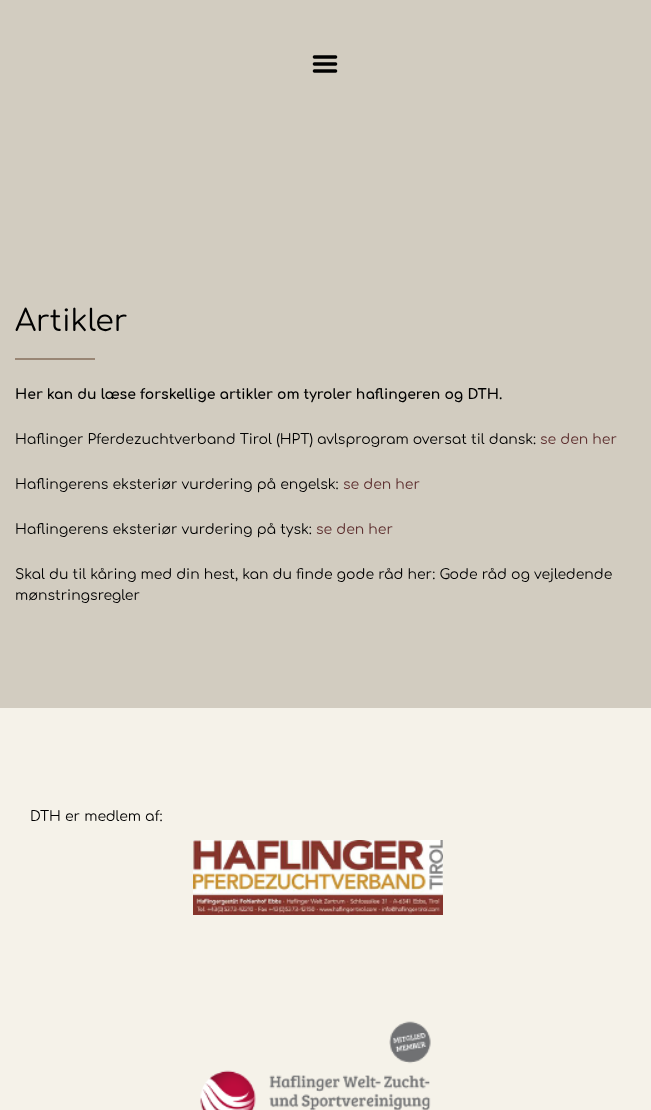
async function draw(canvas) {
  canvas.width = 651
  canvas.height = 1110
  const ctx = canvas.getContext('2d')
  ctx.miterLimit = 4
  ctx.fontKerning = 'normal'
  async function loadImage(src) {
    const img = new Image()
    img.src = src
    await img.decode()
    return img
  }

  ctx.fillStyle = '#d2ccc0'
  ctx.fillRect(0, 0, 651, 1110)
  ctx.drawImage(await loadImage('image0.png'), 312, 55, 26, 18)
  ctx.font = '30px Comfortaa'
  ctx.fillStyle = '#000'
  ctx.fillText('Artikler', 15, 331)
  ctx.fillStyle = '#998675'
  ctx.fillRect(15, 358, 80, 2)
  ctx.font = 'bold 14px Comfortaa'
  ctx.fillStyle = '#000'
  ctx.fillText('Her kan du læse forskellige artikler om tyroler haflingeren og DTH.', 15, 399)
  ctx.font = '14px Comfortaa'
  ctx.fillText('Haflinger Pferdezuchtverband Tirol (HPT) avlsprogram oversat til dansk:', 15, 444)
  ctx.fillStyle = '#5d2e2e'
  ctx.fillText('se den her', 540, 444)
  ctx.fillStyle = '#000'
  ctx.fillText('Haflingerens eksteriør vurdering på engelsk:', 15, 489)
  ctx.fillStyle = '#5d2e2e'
  ctx.fillText('se den her', 343, 489)
  ctx.fillStyle = '#000'
  ctx.fillText('Haflingerens eksteriør vurdering på tysk:', 15, 534)
  ctx.fillStyle = '#5d2e2e'
  ctx.fillText('se den her', 316, 534)
  ctx.fillStyle = '#000'
  ctx.fillText('Skal du til kåring med din hest, kan du finde gode råd her: Gode råd og vejledende', 15, 579)
  ctx.fillText('mønstringsregler', 15, 600)
  ctx.fillStyle = '#f5f2e9'
  ctx.fillRect(0, 708, 651, 402)
  ctx.fillStyle = '#000'
  ctx.fillText('DTH er medlem af:', 30, 821)
  ctx.drawImage(await loadImage('image1.png'), 193, 840, 250, 75)
  ctx.drawImage(await loadImage('image2.png'), 200, 1021, 231, 89)
}

draw(document.querySelector('canvas'))
